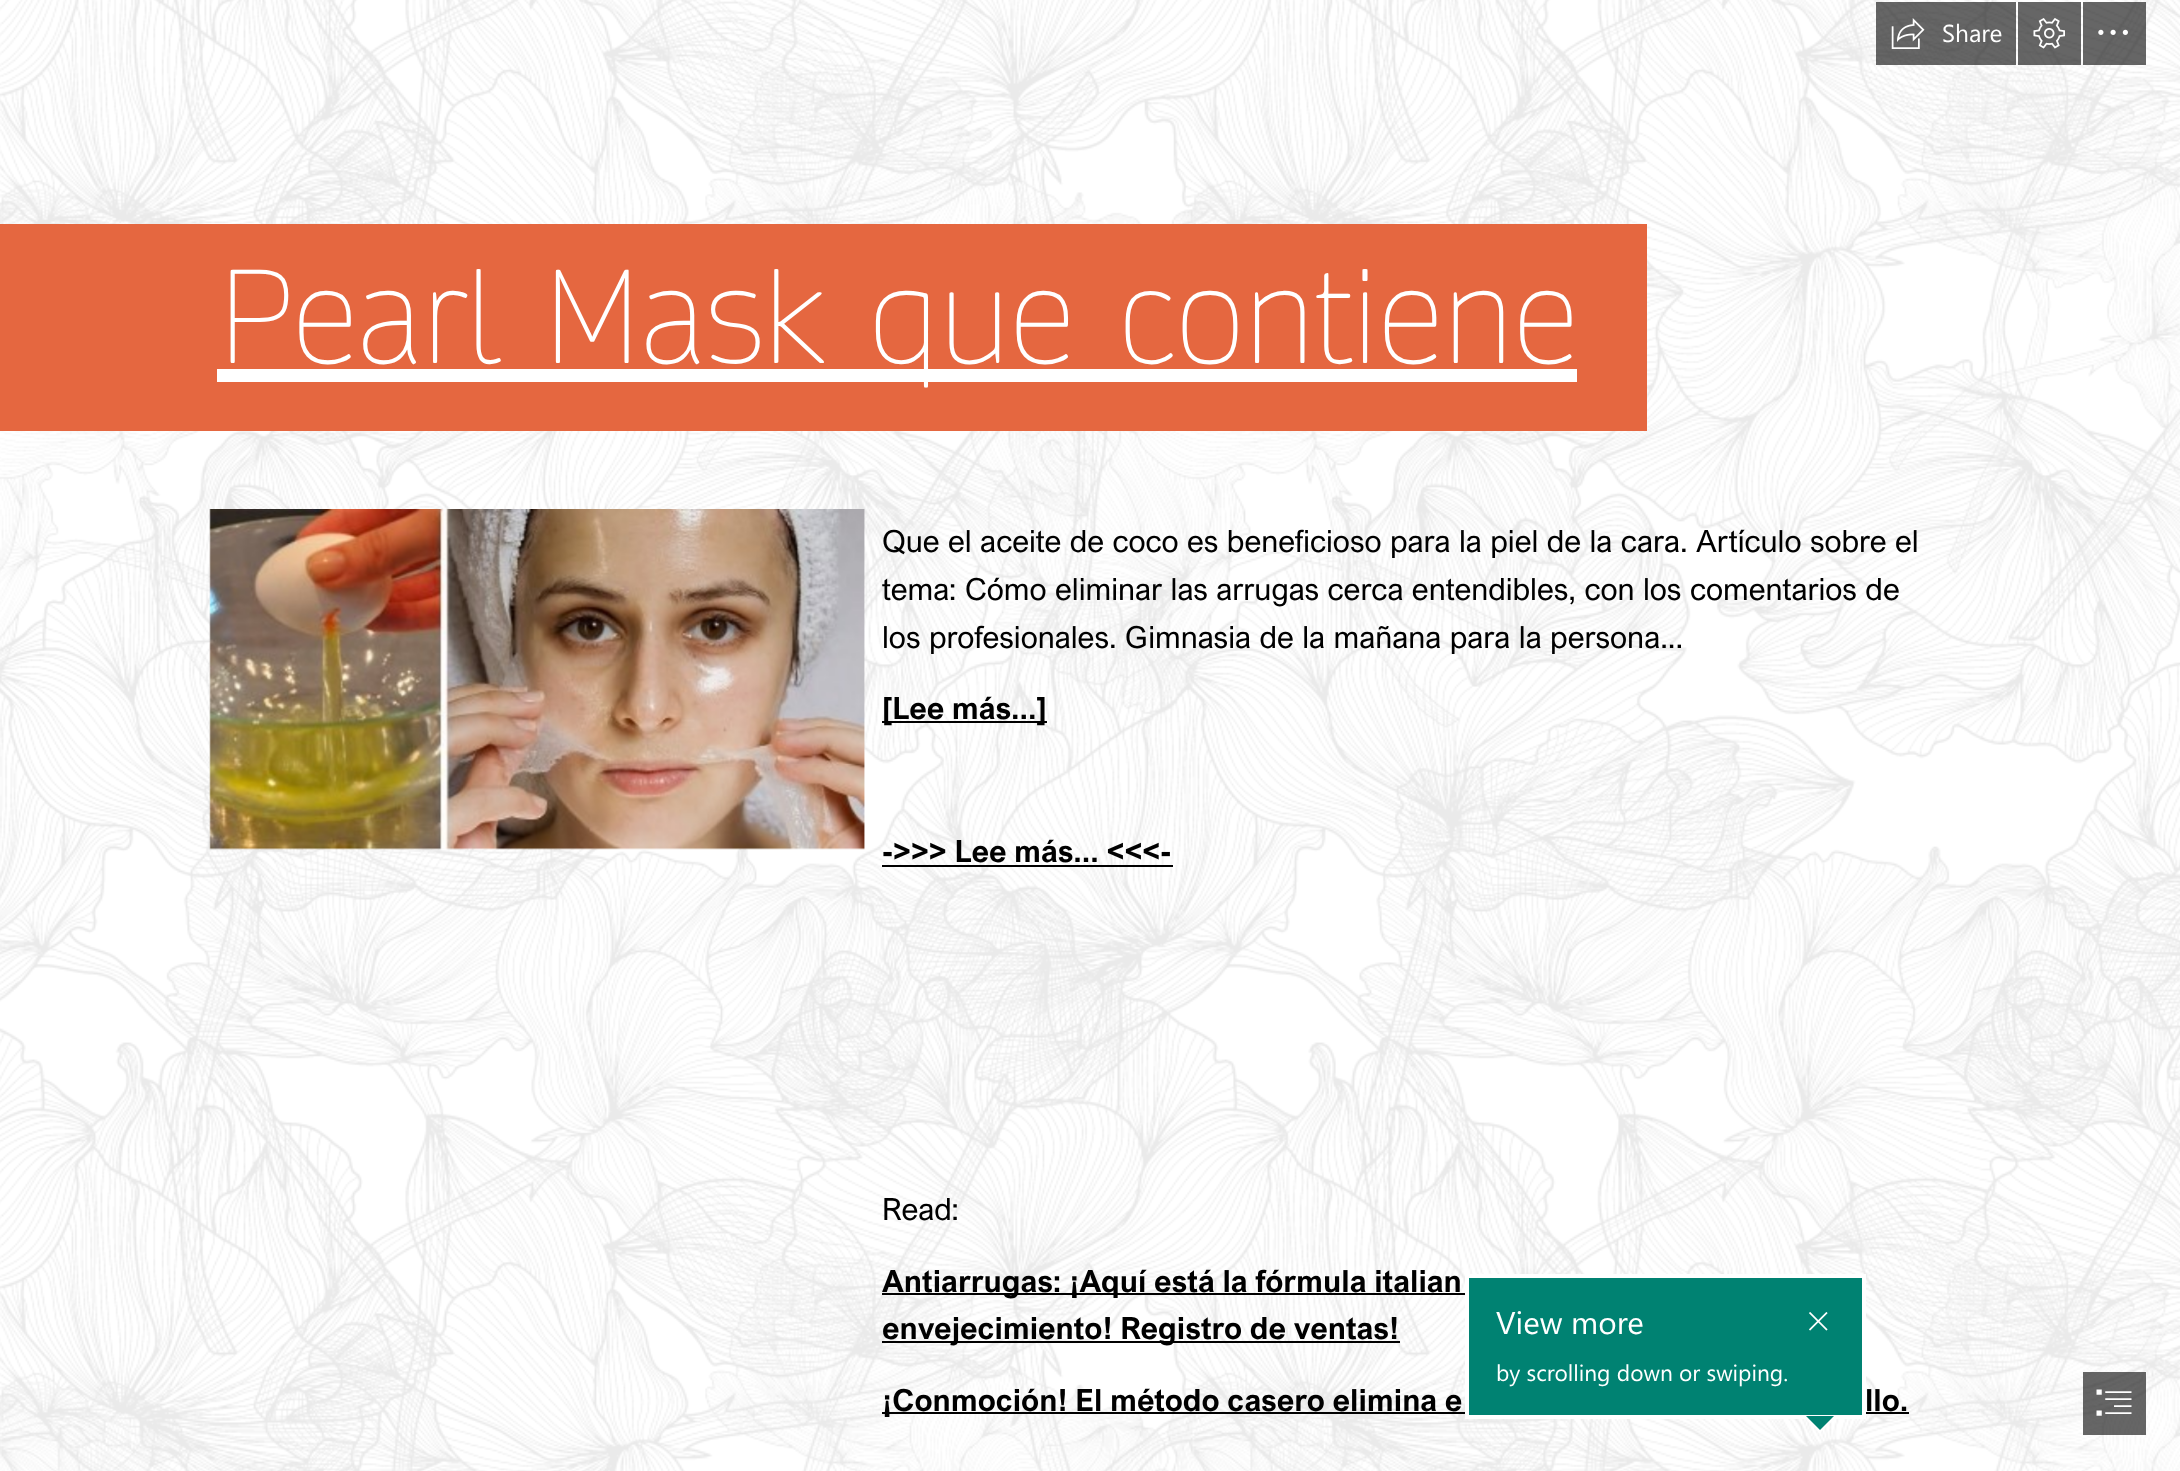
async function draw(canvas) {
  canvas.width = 2180
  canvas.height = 1471
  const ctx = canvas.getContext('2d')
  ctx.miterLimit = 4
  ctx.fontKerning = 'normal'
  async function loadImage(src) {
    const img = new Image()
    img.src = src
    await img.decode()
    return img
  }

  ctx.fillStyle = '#eaeaea'
  ctx.fillRect(0, 0, 2180, 1471)
  ctx.drawImage(await loadImage('image3.png'), 0, 0, 2180, 1471)
  ctx.fillStyle = '#00000099'
  ctx.fillRect(1876, 2, 140, 63)
  ctx.drawImage(await loadImage('image0.png'), 1891, 18, 34, 31)
  ctx.font = '24.5px Segoe UI'
  ctx.fillStyle = '#fff'
  ctx.fillText('Share', 1942, 42)
  ctx.fillStyle = '#00000099'
  ctx.fillRect(2018, 2, 63, 63)
  ctx.drawImage(await loadImage('image1.png'), 2033, 18, 32, 31)
  ctx.fillRect(2083, 2, 63, 63)
  ctx.drawImage(await loadImage('image2.png'), 2098, 29, 30, 6)
  ctx.fillStyle = '#e56740'
  ctx.fillRect(0, 224, 1647, 207)
  ctx.fillStyle = '#fff'
  ctx.fillRect(217, 369, 1360, 13)
  ctx.letterSpacing = '-1.8px'
  ctx.font = '100 127.75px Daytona'
  ctx.fillText('Pearl Mask que contiene', 218, 363)
  ctx.drawImage(await loadImage('image4.png'), 209, 509, 656, 341)
  ctx.letterSpacing = '0px'
  ctx.font = '30.65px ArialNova'
  ctx.fillStyle = '#000'
  ctx.fillText('Que el aceite de coco es beneficioso para la piel de la cara. Artículo sobre el', 882, 552)
  ctx.fillText('tema: Cómo eliminar las arrugas cerca entendibles, con los comentarios de', 882, 600)
  ctx.fillText('los profesionales. Gimnasia de la mañana para la persona...', 882, 648)
  ctx.fillRect(882, 721, 165, 2)
  ctx.font = 'bold 30.65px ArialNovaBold'
  ctx.fillText('[Lee más...]', 882, 719)
  ctx.fillText('->>> Lee más... <<<-', 882, 862)
  ctx.fillRect(882, 865, 291, 2)
  ctx.font = '30.65px ArialNova'
  ctx.fillText('Read:', 882, 1220)
  ctx.fillRect(882, 1293, 583, 2)
  ctx.font = 'bold 30.65px ArialNovaBold'
  ctx.fillText('Antiarrugas: ¡Aquí está la fórmula italian', 882, 1292)
  ctx.fillRect(882, 1341, 518, 2)
  ctx.fillText('envejecimiento! Registro de ventas!', 882, 1339)
  ctx.fillRect(882, 1412, 1027, 2)
  ctx.fillText('¡Conmoción! El método casero elimina e', 882, 1411)
  ctx.fillText('llo.', 1865, 1411)
  ctx.fillStyle = '#008272'
  ctx.beginPath()
  ctx.rect(1467, 1276, 397, 141)
  ctx.fill()
  ctx.strokeStyle = '#fff'
  ctx.lineWidth = 4
  ctx.stroke()
  ctx.font = '31.5px Segoe UI'
  ctx.fillStyle = '#fff'
  ctx.fillText('View more', 1496, 1334)
  ctx.font = '22.75px Segoe UI'
  ctx.fillText('by scrolling down or swiping.', 1496, 1381)
  ctx.drawImage(await loadImage('image5.png'), 1809, 1312, 19, 19)
  ctx.beginPath()
  ctx.moveTo(1802.5, 1416)
  ctx.lineTo(1837.5, 1416)
  ctx.lineTo(1820, 1433)
  ctx.closePath()
  ctx.fill()
  ctx.fillStyle = '#008272'
  ctx.beginPath()
  ctx.moveTo(1806, 1416)
  ctx.lineTo(1834, 1416)
  ctx.lineTo(1820, 1430)
  ctx.closePath()
  ctx.fill()
  ctx.fillStyle = '#00000099'
  ctx.fillRect(2083, 1372, 63, 63)
  ctx.drawImage(await loadImage('image6.png'), 2096, 1389, 36, 27)
}

draw(document.querySelector('canvas'))
